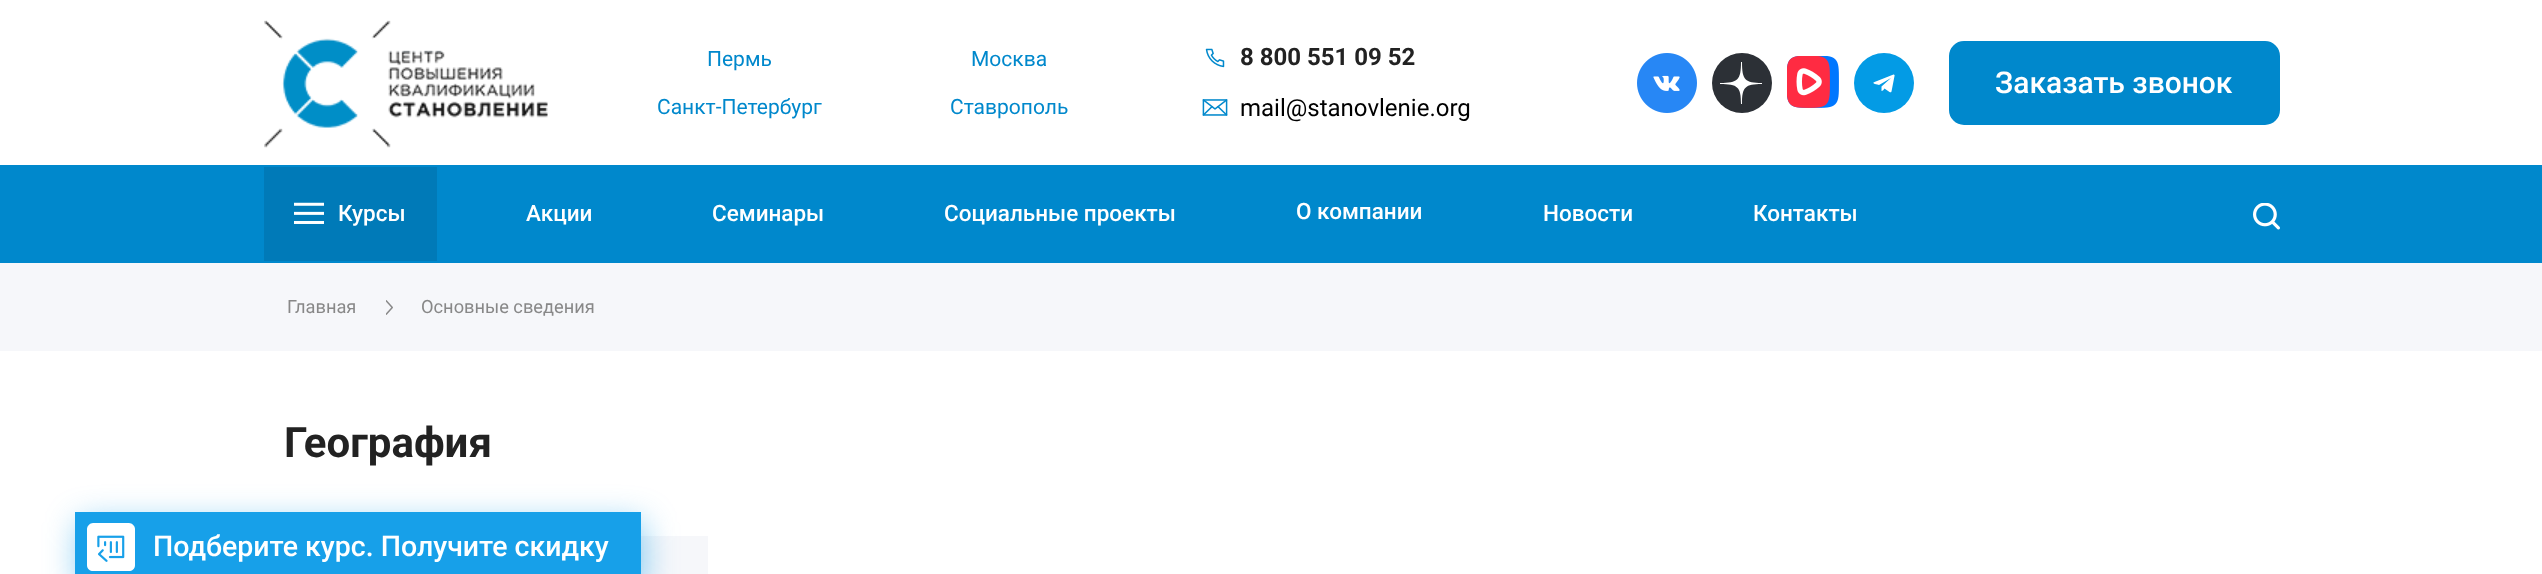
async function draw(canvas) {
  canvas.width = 2542
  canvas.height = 574
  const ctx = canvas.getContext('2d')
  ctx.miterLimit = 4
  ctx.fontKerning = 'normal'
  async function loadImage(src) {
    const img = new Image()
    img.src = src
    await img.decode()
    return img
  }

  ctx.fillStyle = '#fff'
  ctx.fillRect(0, 0, 2542, 574)
  ctx.drawImage(await loadImage('image0.png'), 264, 20, 284, 128)
  ctx.font = '21px Roboto'
  ctx.fillStyle = '#08c'
  ctx.fillText('Пермь', 707, 66)
  ctx.fillText('Москва', 971, 66)
  ctx.fillText('Санкт-Петербург', 657, 114)
  ctx.fillText('Ставрополь', 950, 114)
  ctx.drawImage(await loadImage('image1.png'), 1205, 48, 20, 20)
  ctx.font = 'bold 24px Roboto'
  ctx.fillStyle = '#222'
  ctx.fillText('8 800 551 09 52', 1240, 65)
  ctx.drawImage(await loadImage('image2.png'), 1202, 99, 26, 17)
  ctx.font = '24px Roboto'
  ctx.fillStyle = '#000'
  ctx.fillText('mail@stanovlenie.org', 1240, 116)
  ctx.drawImage(await loadImage('image3.png'), 1637, 53, 60, 60)
  ctx.fillStyle = '#2c3036'
  ctx.beginPath()
  ctx.arc(1742, 83, 30, 0, 2 * Math.PI)
  ctx.fill()
  ctx.fillStyle = '#fff'
  ctx.beginPath()
  ctx.moveTo(1762, 84)
  ctx.lineTo(1762, 83)
  ctx.bezierCurveTo(1745, 83, 1742, 80, 1742, 62)
  ctx.lineTo(1741, 62)
  ctx.bezierCurveTo(1741, 80, 1738, 83, 1720, 83)
  ctx.lineTo(1720, 84)
  ctx.bezierCurveTo(1738, 84, 1741, 87, 1741, 104)
  ctx.lineTo(1742, 104)
  ctx.bezierCurveTo(1742, 87, 1745, 84, 1762, 84)
  ctx.closePath()
  ctx.fill()
  ctx.drawImage(await loadImage('image4.png'), 1787, 56, 52, 52)
  ctx.fillStyle = '#039be5'
  ctx.beginPath()
  ctx.arc(1884, 83, 30, 0, 2 * Math.PI)
  ctx.fill()
  ctx.fillStyle = '#fff'
  ctx.beginPath()
  ctx.moveTo(1874.5, 82)
  ctx.lineTo(1893.5, 74.5)
  ctx.bezierCurveTo(1894, 74.5, 1895, 75, 1894.5, 76)
  ctx.lineTo(1891.5, 91.5)
  ctx.bezierCurveTo(1891, 92.5, 1890.5, 92.5, 1889.5, 92)
  ctx.lineTo(1884.5, 88.5)
  ctx.bezierCurveTo(1884, 89.5, 1882.5, 91, 1881.5, 91)
  ctx.lineTo(1881.5, 86.5)
  ctx.lineTo(1891, 78)
  ctx.lineTo(1879, 85)
  ctx.bezierCurveTo(1878, 84.5, 1870.5, 83.5, 1874.5, 82)
  ctx.closePath()
  ctx.fill()
  ctx.fillStyle = '#08c'
  ctx.beginPath()
  ctx.roundRect(1950, 42, 329, 82, 14)
  ctx.fill()
  ctx.strokeStyle = '#08c'
  ctx.lineWidth = 2
  ctx.stroke()
  ctx.font = '500 30px Roboto'
  ctx.fillStyle = '#fff'
  ctx.fillText('Заказать звонок', 1995, 93)
  ctx.fillStyle = '#08c'
  ctx.fillRect(0, 165, 2542, 98)
  ctx.fillStyle = '#007ab8'
  ctx.fillRect(264, 167, 173, 94)
  ctx.drawImage(await loadImage('image5.png'), 294, 202, 30, 22)
  ctx.font = '500 22.5px Roboto'
  ctx.fillStyle = '#fff'
  ctx.fillText('Курсы', 338, 221)
  ctx.fillText('Акции', 526, 221)
  ctx.fillText('Семинары', 712, 221)
  ctx.fillText('Социальные проекты', 944, 221)
  ctx.fillText('О компании', 1296, 219)
  ctx.fillText('Новости', 1543, 221)
  ctx.fillText('Контакты', 1753, 221)
  ctx.drawImage(await loadImage('image6.png'), 2253, 203, 27, 27)
  ctx.fillStyle = '#f6f7fa'
  ctx.fillRect(0, 263, 2542, 88)
  ctx.font = '18.25px Roboto'
  ctx.fillStyle = '#888'
  ctx.fillText('Главная', 287, 313)
  ctx.drawImage(await loadImage('image7.png'), 386, 300, 7, 15)
  ctx.fillText('Основные сведения', 421, 313)
  ctx.font = 'bold 42px Roboto'
  ctx.fillStyle = '#222'
  ctx.fillText('География', 284, 457)
  ctx.fillStyle = '#f6f7fa'
  ctx.fillRect(641, 536, 67, 38)
  ctx.fillStyle = '#17a0e980'
  ctx.filter = 'blur(16px)'
  ctx.beginPath()
  ctx.roundRect(78, 521, 566, 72, 6)
  ctx.fill()
  ctx.filter = 'none'
  ctx.fillStyle = '#17a0e9'
  ctx.fillRect(75, 512, 566, 62)
  ctx.fillStyle = '#fff'
  ctx.beginPath()
  ctx.moveTo(135, 529)
  ctx.lineTo(135, 565)
  ctx.bezierCurveTo(135, 569, 132, 571, 129, 571)
  ctx.lineTo(93, 571)
  ctx.bezierCurveTo(90, 571, 87, 569, 87, 565)
  ctx.lineTo(87, 529)
  ctx.bezierCurveTo(87, 526, 90, 523, 93, 523)
  ctx.lineTo(129, 523)
  ctx.bezierCurveTo(132, 523, 135, 526, 135, 529)
  ctx.closePath()
  ctx.fill()
  ctx.drawImage(await loadImage('image8.png'), 97, 535, 28, 27)
  ctx.font = '500 28.5px Roboto'
  ctx.fillText('Подберите курс. Получите скидку', 153, 556)
}

draw(document.querySelector('canvas'))
